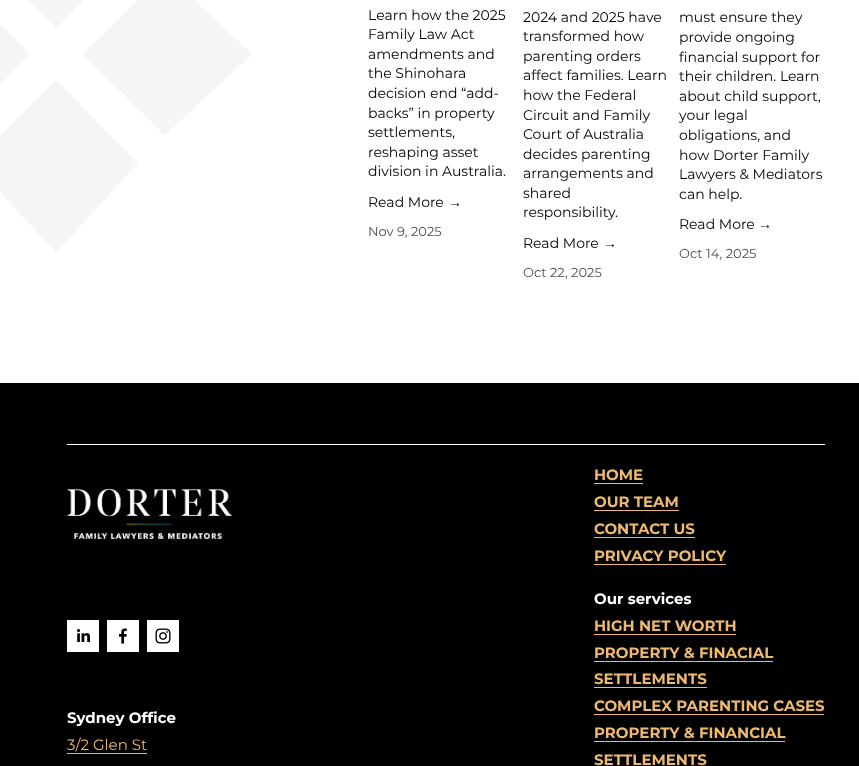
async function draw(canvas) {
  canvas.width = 859
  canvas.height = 766
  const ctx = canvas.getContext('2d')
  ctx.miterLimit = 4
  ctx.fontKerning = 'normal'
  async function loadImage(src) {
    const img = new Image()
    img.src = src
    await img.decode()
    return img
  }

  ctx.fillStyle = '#fff'
  ctx.fillRect(0, 0, 859, 766)
  ctx.drawImage(await loadImage('image0.png'), 0, 0, 252, 253)
  ctx.font = '14px Montserrat'
  ctx.fillStyle = '#000'
  ctx.fillText('Learn how the 2025', 368, 20)
  ctx.fillText('Family Law Act', 368, 39)
  ctx.fillText('amendments and', 368, 59)
  ctx.fillText('the Shinohara', 368, 78)
  ctx.fillText('decision end “add-', 368, 98)
  ctx.fillText('backs” in property', 368, 118)
  ctx.fillText('settlements,', 368, 137)
  ctx.fillText('reshaping asset', 368, 157)
  ctx.fillText('division in Australia.', 368, 176)
  ctx.fillText('Read More', 368, 207)
  ctx.font = '14px Liberation Serif'
  ctx.fillText('→', 448, 207)
  ctx.font = '13px Montserrat'
  ctx.fillStyle = '#4d4d4d'
  ctx.fillText('Nov 9, 2025', 368, 236)
  ctx.font = '14px Montserrat'
  ctx.fillStyle = '#000'
  ctx.fillText('2024 and 2025 have', 523, 22)
  ctx.fillText('transformed how', 523, 41)
  ctx.fillText('parenting orders', 523, 61)
  ctx.fillText('affect families. Learn', 523, 80)
  ctx.fillText('how the Federal', 523, 100)
  ctx.fillText('Circuit and Family', 523, 120)
  ctx.fillText('Court of Australia', 523, 139)
  ctx.fillText('decides parenting', 523, 159)
  ctx.fillText('arrangements and', 523, 178)
  ctx.fillText('shared', 523, 198)
  ctx.fillText('responsibility.', 523, 217)
  ctx.fillText('Read More', 523, 248)
  ctx.font = '14px Liberation Serif'
  ctx.fillText('→', 603, 248)
  ctx.font = '13px Montserrat'
  ctx.fillStyle = '#4d4d4d'
  ctx.fillText('Oct 22, 2025', 523, 277)
  ctx.font = '14px Montserrat'
  ctx.fillStyle = '#000'
  ctx.fillText('must ensure they', 679, 22)
  ctx.fillText('provide ongoing', 679, 42)
  ctx.fillText('financial support for', 679, 62)
  ctx.fillText('their children. Learn', 679, 81)
  ctx.fillText('about child support,', 679, 101)
  ctx.fillText('your legal', 679, 120)
  ctx.fillText('obligations, and', 679, 140)
  ctx.fillText('how Dorter Family', 679, 160)
  ctx.fillText('Lawyers & Mediators', 679, 179)
  ctx.fillText('can help.', 679, 199)
  ctx.fillText('Read More', 679, 229)
  ctx.font = '14px Liberation Serif'
  ctx.fillText('→', 758, 229)
  ctx.font = '13px Montserrat'
  ctx.fillStyle = '#4d4d4d'
  ctx.fillText('Oct 14, 2025', 679, 258)
  ctx.fillStyle = '#000'
  ctx.fillRect(0, 383, 859, 383)
  ctx.fillStyle = '#fff'
  ctx.fillRect(67, 444, 758, 1)
  ctx.drawImage(await loadImage('image1.png'), 67, 489, 165, 50)
  ctx.font = 'bold 15px Montserrat'
  ctx.fillStyle = '#edb96f'
  ctx.fillText('HOME', 594, 480)
  ctx.fillRect(594, 483, 49, 1)
  ctx.fillText('OUR TEAM', 594, 507)
  ctx.fillRect(594, 510, 85, 1)
  ctx.fillText('CONTACT US', 594, 534)
  ctx.fillRect(594, 537, 101, 1)
  ctx.fillText('PRIVACY POLICY', 594, 561)
  ctx.fillRect(594, 564, 132, 1)
  ctx.fillStyle = '#fff'
  ctx.fillText('Our services', 594, 604)
  ctx.fillStyle = '#edb96f'
  ctx.fillText('HIGH NET WORTH', 594, 631)
  ctx.fillRect(594, 634, 142, 1)
  ctx.fillText('PROPERTY & FINACIAL', 594, 658)
  ctx.fillRect(594, 661, 179, 1)
  ctx.fillText('SETTLEMENTS', 594, 684)
  ctx.fillRect(594, 687, 113, 1)
  ctx.fillText('COMPLEX PARENTING CASES', 594, 711)
  ctx.fillRect(594, 714, 230, 1)
  ctx.fillText('PROPERTY & FINANCIAL', 594, 738)
  ctx.fillRect(594, 741, 191, 1)
  ctx.fillText('SETTLEMENTS', 594, 765)
  ctx.fillStyle = '#fff'
  ctx.fillRect(67, 620, 32, 32)
  ctx.drawImage(await loadImage('image2.png'), 77, 629, 13, 13)
  ctx.fillRect(107, 620, 32, 32)
  ctx.drawImage(await loadImage('image3.png'), 119, 628, 8, 16)
  ctx.fillRect(147, 620, 32, 32)
  ctx.drawImage(await loadImage('image4.png'), 155, 628, 16, 16)
  ctx.fillText('Sydney Office', 67, 723)
  ctx.font = '15px Montserrat'
  ctx.fillStyle = '#edb96f'
  ctx.fillText('3/2 Glen St', 67, 750)
  ctx.fillRect(67, 753, 80, 1)
}

draw(document.querySelector('canvas'))
